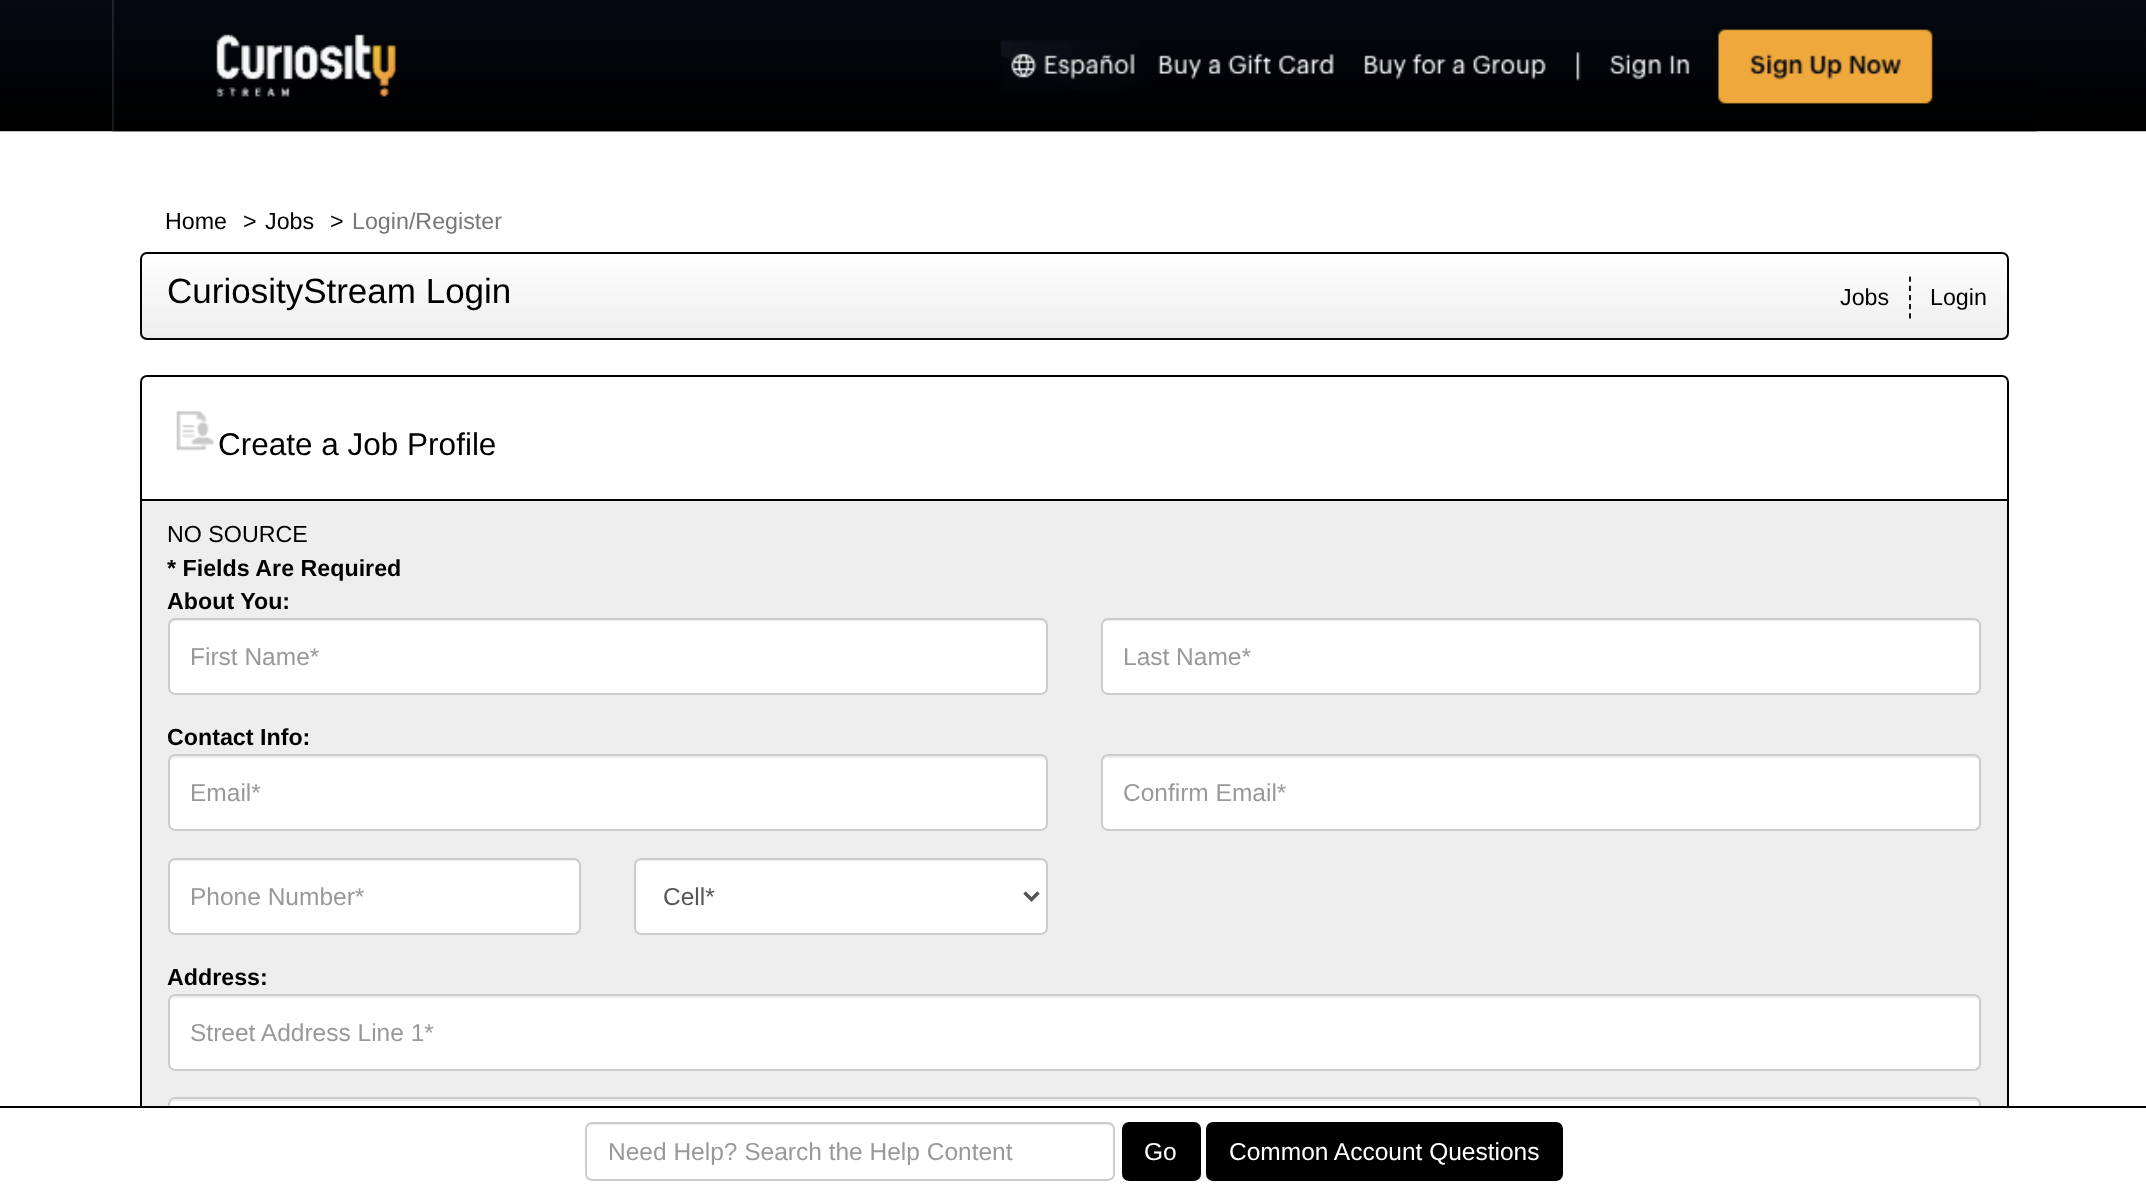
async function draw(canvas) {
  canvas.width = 2146
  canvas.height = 1195
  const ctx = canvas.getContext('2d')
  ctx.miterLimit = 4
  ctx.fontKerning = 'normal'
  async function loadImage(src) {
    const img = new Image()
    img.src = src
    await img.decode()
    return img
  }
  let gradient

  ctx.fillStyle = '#fff'
  ctx.fillRect(0, 0, 2146, 1195)
  ctx.drawImage(await loadImage('image0.png'), 0, 0, 2146, 132)
  ctx.drawImage(await loadImage('image1.png'), 112, 0, 1925, 132)
  ctx.font = '23.25px Liberation Sans'
  ctx.fillStyle = '#000'
  ctx.fillText('Home', 165, 229)
  ctx.fillText('>', 243, 229)
  ctx.fillText('Jobs', 265, 229)
  ctx.fillText('>', 330, 229)
  ctx.fillStyle = '#777'
  ctx.fillText('Login/Register', 352, 229)
  ctx.save()
  ctx.beginPath()
  ctx.roundRect(140, 252, 1869, 88, 7)
  ctx.clip()
  gradient = ctx.createLinearGradient(1075, 254, 1075, 338)
  gradient.addColorStop(0, '#fff')
  gradient.addColorStop(1, '#eee')
  ctx.fillStyle = gradient
  ctx.fillRect(140, 254, 1869, 84)
  ctx.restore()
  ctx.beginPath()
  ctx.roundRect(141, 253, 1867, 86, 6)
  ctx.strokeStyle = '#000'
  ctx.lineWidth = 2
  ctx.stroke()
  ctx.font = '35px Liberation Sans'
  ctx.fillStyle = '#000'
  ctx.fillText('CuriosityStream Login', 167, 303)
  ctx.font = '23.25px Liberation Sans'
  ctx.fillText('Jobs', 1840, 305)
  ctx.beginPath()
  ctx.moveTo(1910, 276.5)
  ctx.lineTo(1910, 318.5)
  ctx.lineWidth = 1.8
  ctx.setLineDash([5.25, 3.94])
  ctx.stroke()
  ctx.fillText('Login', 1930, 305)
  ctx.beginPath()
  ctx.roundRect(141, 376, 1867, 124, [6, 6, 0, 0])
  ctx.lineWidth = 2
  ctx.setLineDash([])
  ctx.stroke()
  ctx.drawImage(await loadImage('image2.png'), 176, 411, 38, 40)
  ctx.font = '31.5px Liberation Sans'
  ctx.fillText('Create a Job Profile', 218, 455)
  ctx.fillStyle = '#eee'
  ctx.fillRect(142, 501, 1865, 605)
  ctx.strokeRect(141, 500, 1867, 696)
  ctx.font = '23.25px Liberation Sans'
  ctx.fillStyle = '#000'
  ctx.fillText('NO SOURCE', 167, 542)
  ctx.font = 'bold 23.25px Liberation Sans'
  ctx.fillText('* Fields Are Required', 167, 576)
  ctx.fillText('About You:', 167, 609)
  ctx.fillStyle = '#fff'
  ctx.beginPath()
  ctx.roundRect(168, 618, 880, 77, 7)
  ctx.fill()
  ctx.fillStyle = '#ececec'
  ctx.beginPath()
  ctx.moveTo(175, 621)
  ctx.lineTo(1041, 621)
  ctx.bezierCurveTo(1044, 621, 1046, 624, 1046, 626)
  ctx.lineTo(1046, 691)
  ctx.bezierCurveTo(1047, 690, 1047, 689, 1047, 688)
  ctx.lineTo(1047, 625)
  ctx.bezierCurveTo(1047, 622, 1045, 620, 1042, 620)
  ctx.lineTo(175, 620)
  ctx.bezierCurveTo(172, 620, 170, 622, 170, 625)
  ctx.lineTo(170, 626)
  ctx.bezierCurveTo(170, 624, 172, 621, 175, 621)
  ctx.closePath()
  ctx.fill()
  ctx.beginPath()
  ctx.roundRect(169, 619, 878, 75, 6)
  ctx.strokeStyle = '#ccc'
  ctx.stroke()
  ctx.font = '24.5px Liberation Sans'
  ctx.fillStyle = '#999'
  ctx.fillText('First Name*', 190, 665)
  ctx.fillStyle = '#fff'
  ctx.beginPath()
  ctx.roundRect(1101, 618, 880, 77, 7)
  ctx.fill()
  ctx.fillStyle = '#ececec'
  ctx.beginPath()
  ctx.moveTo(1108, 621)
  ctx.lineTo(1974, 621)
  ctx.bezierCurveTo(1977, 621, 1979, 624, 1979, 626)
  ctx.lineTo(1979, 625)
  ctx.bezierCurveTo(1979, 622, 1977, 620, 1974, 620)
  ctx.lineTo(1108, 620)
  ctx.bezierCurveTo(1106, 620, 1104, 621, 1103, 623)
  ctx.bezierCurveTo(1104, 622, 1106, 621, 1108, 621)
  ctx.closePath()
  ctx.fill()
  ctx.beginPath()
  ctx.roundRect(1102, 619, 878, 75, 6)
  ctx.stroke()
  ctx.fillStyle = '#999'
  ctx.fillText('Last Name*', 1123, 665)
  ctx.font = 'bold 23.25px Liberation Sans'
  ctx.fillStyle = '#000'
  ctx.fillText('Contact Info:', 167, 745)
  ctx.fillStyle = '#fff'
  ctx.beginPath()
  ctx.roundRect(168, 754, 880, 77, 7)
  ctx.fill()
  ctx.fillStyle = '#ececec'
  ctx.beginPath()
  ctx.moveTo(175, 758)
  ctx.lineTo(1041, 758)
  ctx.bezierCurveTo(1044, 758, 1046, 760, 1046, 763)
  ctx.lineTo(1046, 826)
  ctx.lineTo(1045, 829)
  ctx.bezierCurveTo(1046, 828, 1047, 826, 1047, 825)
  ctx.lineTo(1047, 761)
  ctx.bezierCurveTo(1047, 758, 1045, 756, 1042, 756)
  ctx.lineTo(175, 756)
  ctx.bezierCurveTo(172, 756, 170, 758, 170, 761)
  ctx.lineTo(170, 763)
  ctx.bezierCurveTo(170, 760, 172, 758, 175, 758)
  ctx.closePath()
  ctx.fill()
  ctx.beginPath()
  ctx.roundRect(169, 755, 878, 75, 6)
  ctx.stroke()
  ctx.font = '24.5px Liberation Sans'
  ctx.fillStyle = '#999'
  ctx.fillText('Email*', 190, 801)
  ctx.fillStyle = '#fff'
  ctx.beginPath()
  ctx.roundRect(1101, 754, 880, 77, 7)
  ctx.fill()
  ctx.fillStyle = '#ececec'
  ctx.beginPath()
  ctx.moveTo(1108, 758)
  ctx.lineTo(1974, 758)
  ctx.bezierCurveTo(1977, 758, 1979, 760, 1979, 763)
  ctx.lineTo(1979, 761)
  ctx.bezierCurveTo(1979, 758, 1977, 756, 1974, 756)
  ctx.lineTo(1108, 756)
  ctx.bezierCurveTo(1106, 756, 1103, 758, 1103, 760)
  ctx.bezierCurveTo(1104, 759, 1106, 758, 1108, 758)
  ctx.closePath()
  ctx.fill()
  ctx.beginPath()
  ctx.roundRect(1102, 755, 878, 75, 6)
  ctx.stroke()
  ctx.fillStyle = '#999'
  ctx.fillText('Confirm Email*', 1123, 801)
  ctx.fillStyle = '#fff'
  ctx.beginPath()
  ctx.roundRect(168, 858, 413, 77, 7)
  ctx.fill()
  ctx.fillStyle = '#ececec'
  ctx.beginPath()
  ctx.moveTo(175, 861)
  ctx.lineTo(574, 861)
  ctx.bezierCurveTo(577, 861, 579, 863, 579, 866)
  ctx.lineTo(579, 864)
  ctx.bezierCurveTo(579, 861, 577, 859, 574, 859)
  ctx.lineTo(175, 859)
  ctx.bezierCurveTo(172, 859, 170, 861, 170, 864)
  ctx.lineTo(170, 866)
  ctx.bezierCurveTo(170, 863, 172, 861, 175, 861)
  ctx.closePath()
  ctx.fill()
  ctx.beginPath()
  ctx.roundRect(169, 859, 411, 75, 6)
  ctx.stroke()
  ctx.fillStyle = '#999'
  ctx.fillText('Phone Number*', 190, 905)
  ctx.fillStyle = '#fff'
  ctx.beginPath()
  ctx.roundRect(634, 858, 414, 77, 7)
  ctx.fill()
  ctx.fillStyle = '#ececec'
  ctx.beginPath()
  ctx.moveTo(640, 861)
  ctx.lineTo(1041, 861)
  ctx.bezierCurveTo(1044, 861, 1046, 863, 1046, 866)
  ctx.lineTo(1046, 929)
  ctx.lineTo(1045, 932)
  ctx.bezierCurveTo(1046, 931, 1047, 929, 1047, 928)
  ctx.lineTo(1047, 864)
  ctx.bezierCurveTo(1047, 861, 1045, 859, 1042, 859)
  ctx.lineTo(640, 859)
  ctx.bezierCurveTo(637, 859, 635, 861, 635, 864)
  ctx.lineTo(635, 866)
  ctx.bezierCurveTo(635, 863, 638, 861, 640, 861)
  ctx.closePath()
  ctx.fill()
  ctx.beginPath()
  ctx.roundRect(635, 859, 412, 75, 6)
  ctx.stroke()
  ctx.beginPath()
  ctx.moveTo(1024.5, 892.5)
  ctx.lineTo(1031.5, 899.5)
  ctx.lineTo(1038.5, 892.5)
  ctx.strokeStyle = '#555'
  ctx.lineWidth = 3.5
  ctx.stroke()
  ctx.fillStyle = '#555'
  ctx.fillText('Cell*', 663, 905)
  ctx.font = 'bold 23.25px Liberation Sans'
  ctx.fillStyle = '#000'
  ctx.fillText('Address:', 167, 985)
  ctx.fillStyle = '#fff'
  ctx.beginPath()
  ctx.roundRect(168, 994, 1813, 77, 7)
  ctx.fill()
  ctx.fillStyle = '#ececec'
  ctx.beginPath()
  ctx.moveTo(175, 998)
  ctx.lineTo(1974, 998)
  ctx.bezierCurveTo(1977, 998, 1979, 1000, 1979, 1003)
  ctx.bezierCurveTo(1979, 1000, 1978, 996, 1974, 996)
  ctx.lineTo(175, 996)
  ctx.bezierCurveTo(171, 996, 170, 1000, 170, 1003)
  ctx.bezierCurveTo(170, 1000, 172, 998, 175, 998)
  ctx.closePath()
  ctx.fill()
  ctx.beginPath()
  ctx.roundRect(169, 995, 1811, 75, 6)
  ctx.strokeStyle = '#ccc'
  ctx.lineWidth = 2
  ctx.stroke()
  ctx.font = '24.5px Liberation Sans'
  ctx.fillStyle = '#999'
  ctx.fillText('Street Address Line 1*', 190, 1041)
  ctx.fillStyle = '#fff'
  ctx.beginPath()
  ctx.roundRect(168, 1097, 1813, 77, 7)
  ctx.fill()
  ctx.fillStyle = '#ececec'
  ctx.beginPath()
  ctx.moveTo(175, 1101)
  ctx.lineTo(1974, 1101)
  ctx.bezierCurveTo(1977, 1101, 1979, 1103, 1979, 1106)
  ctx.bezierCurveTo(1979, 1103, 1978, 1099, 1974, 1099)
  ctx.lineTo(175, 1099)
  ctx.bezierCurveTo(171, 1099, 170, 1103, 170, 1106)
  ctx.bezierCurveTo(170, 1103, 172, 1101, 175, 1101)
  ctx.closePath()
  ctx.fill()
  ctx.beginPath()
  ctx.roundRect(169, 1098, 1811, 75, 6)
  ctx.stroke()
  ctx.fillStyle = '#fff'
  ctx.fillRect(140, 1108, 1869, 87)
  ctx.fillStyle = '#000'
  ctx.fillRect(0, 1106, 2146, 2)
  ctx.fillStyle = '#ececec'
  ctx.beginPath()
  ctx.moveTo(592, 1125)
  ctx.lineTo(1108, 1125)
  ctx.bezierCurveTo(1111, 1125, 1113, 1128, 1113, 1130)
  ctx.lineTo(1113, 1129)
  ctx.bezierCurveTo(1113, 1126, 1111, 1124, 1108, 1124)
  ctx.lineTo(591, 1124)
  ctx.bezierCurveTo(588, 1124, 586, 1126, 586, 1129)
  ctx.lineTo(586, 1130)
  ctx.bezierCurveTo(586, 1128, 589, 1125, 592, 1125)
  ctx.closePath()
  ctx.fill()
  ctx.beginPath()
  ctx.roundRect(586, 1123, 528, 57, 6)
  ctx.stroke()
  ctx.fillStyle = '#999'
  ctx.fillText('Need Help? Search the Help Content', 608, 1160)
  ctx.fillStyle = '#000'
  ctx.beginPath()
  ctx.roundRect(1122, 1122, 79, 59, 7)
  ctx.fill()
  ctx.fillStyle = '#fff'
  ctx.fillText('Go', 1144, 1160)
  ctx.fillStyle = '#000'
  ctx.beginPath()
  ctx.roundRect(1206, 1122, 357, 59, 7)
  ctx.fill()
  ctx.fillStyle = '#fff'
  ctx.fillText('Common Account Questions', 1229, 1160)
}

draw(document.querySelector('canvas'))
